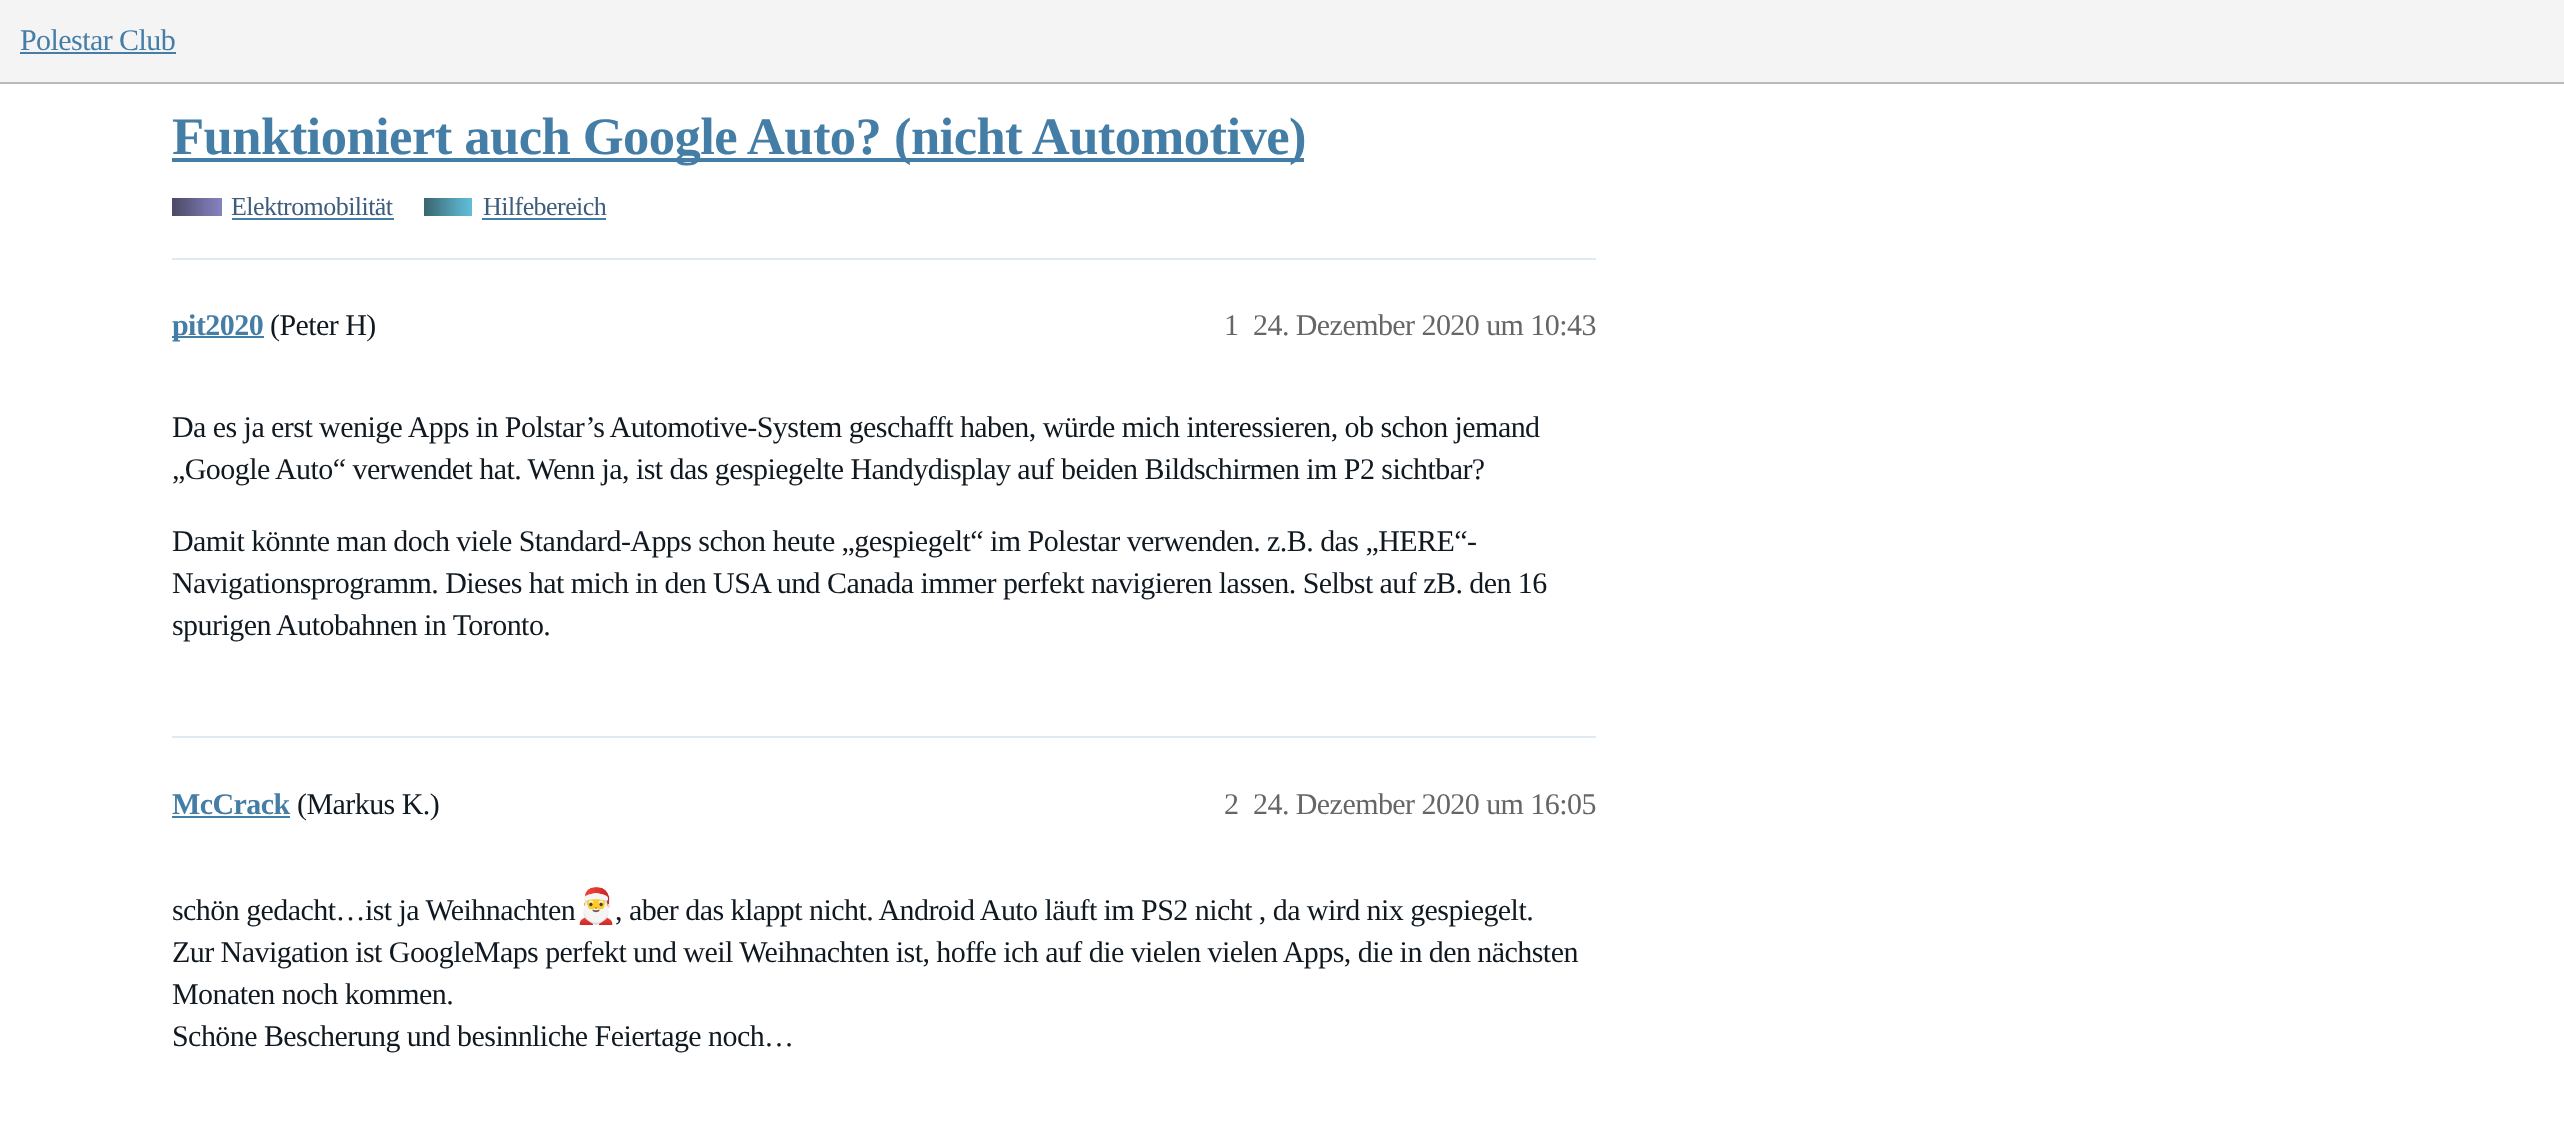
async function draw(canvas) {
  canvas.width = 2564
  canvas.height = 1130
  const ctx = canvas.getContext('2d')
  ctx.miterLimit = 4
  ctx.fontKerning = 'normal'
  async function loadImage(src) {
    const img = new Image()
    img.src = src
    await img.decode()
    return img
  }

  ctx.fillStyle = '#fff'
  ctx.fillRect(0, 0, 2564, 1130)
  ctx.fillStyle = '#f4f4f4'
  ctx.fillRect(0, 0, 2564, 82)
  ctx.fillStyle = '#b8bbbe'
  ctx.fillRect(0, 82, 2564, 2)
  ctx.letterSpacing = '-0.56px'
  ctx.font = '30px Liberation Serif'
  ctx.fillStyle = '#447ea6'
  ctx.fillText('Polestar Club', 20, 50)
  ctx.fillRect(20, 52, 156, 2)
  ctx.fillRect(172, 158, 1132, 4)
  ctx.font = 'bold 52.6px Liberation Serif'
  ctx.fillText('Funktioniert auch Google Auto? (nicht Automotive)', 172, 154)
  ctx.fillStyle = '#8480bd'
  ctx.fillRect(172, 198, 50, 18)
  ctx.drawImage(await loadImage('image0.png'), 172, 198, 46, 18)
  ctx.font = '26px Liberation Serif'
  ctx.fillStyle = '#3e5d7c'
  ctx.fillText('Elektromobilität', 231, 215)
  ctx.fillStyle = '#447ea6'
  ctx.fillRect(232, 218, 162, 2)
  ctx.fillStyle = '#60bcd5'
  ctx.fillRect(424, 198, 48, 18)
  ctx.drawImage(await loadImage('image1.png'), 424, 198, 45, 18)
  ctx.fillStyle = '#3e5d7c'
  ctx.fillText('Hilfebereich', 483, 215)
  ctx.fillStyle = '#447ea6'
  ctx.fillRect(482, 218, 124, 2)
  ctx.fillStyle = '#e0e8f0'
  ctx.fillRect(172, 258, 1424, 2)
  ctx.fillStyle = '#447ea6'
  ctx.fillRect(172, 336, 92, 2)
  ctx.font = 'bold 30px Liberation Serif'
  ctx.fillText('pit2020', 172, 335)
  ctx.font = '30px Liberation Serif'
  ctx.fillStyle = '#101820'
  ctx.fillText('(Peter H)', 270, 335)
  ctx.fillStyle = '#666'
  ctx.fillText('1', 1224, 335)
  ctx.fillText('24. Dezember 2020 um 10:43', 1253, 335)
  ctx.fillStyle = '#101820'
  ctx.fillText('Da es ja erst wenige Apps in Polstar’s Automotive-System geschafft haben, würde mich interessieren, ob schon jemand', 172, 437)
  ctx.fillText('„Google Auto“ verwendet hat. Wenn ja, ist das gespiegelte Handydisplay auf beiden Bildschirmen im P2 sichtbar?', 172, 479)
  ctx.fillText('Damit könnte man doch viele Standard-Apps schon heute „gespiegelt“ im Polestar verwenden. z.B. das „HERE“-', 172, 551)
  ctx.fillText('Navigationsprogramm. Dieses hat mich in den USA und Canada immer perfekt navigieren lassen. Selbst auf zB. den 16', 172, 593)
  ctx.fillText('spurigen Autobahnen in Toronto.', 172, 635)
  ctx.fillStyle = '#e0e8f0'
  ctx.fillRect(172, 736, 1424, 2)
  ctx.font = 'bold 30px Liberation Serif'
  ctx.fillStyle = '#447ea6'
  ctx.fillText('McCrack', 172, 814)
  ctx.fillRect(172, 816, 118, 2)
  ctx.font = '30px Liberation Serif'
  ctx.fillStyle = '#101820'
  ctx.fillText('(Markus K.)', 297, 814)
  ctx.fillStyle = '#666'
  ctx.fillText('2', 1224, 814)
  ctx.fillText('24. Dezember 2020 um 16:05', 1253, 814)
  ctx.fillStyle = '#101820'
  ctx.fillText('schön gedacht…ist ja Weihnachten', 172, 920)
  ctx.drawImage(await loadImage('image2.png'), 579, 887, 34, 38)
  ctx.fillText(', aber das klappt nicht. Android Auto läuft im PS2 nicht , da wird nix gespiegelt.', 615, 920)
  ctx.fillText('Zur Navigation ist GoogleMaps perfekt und weil Weihnachten ist, hoffe ich auf die vielen vielen Apps, die in den nächsten', 172, 962)
  ctx.fillText('Monaten noch kommen.', 172, 1004)
  ctx.fillText('Schöne Bescherung und besinnliche Feiertage noch…', 172, 1046)
}

draw(document.querySelector('canvas'))
